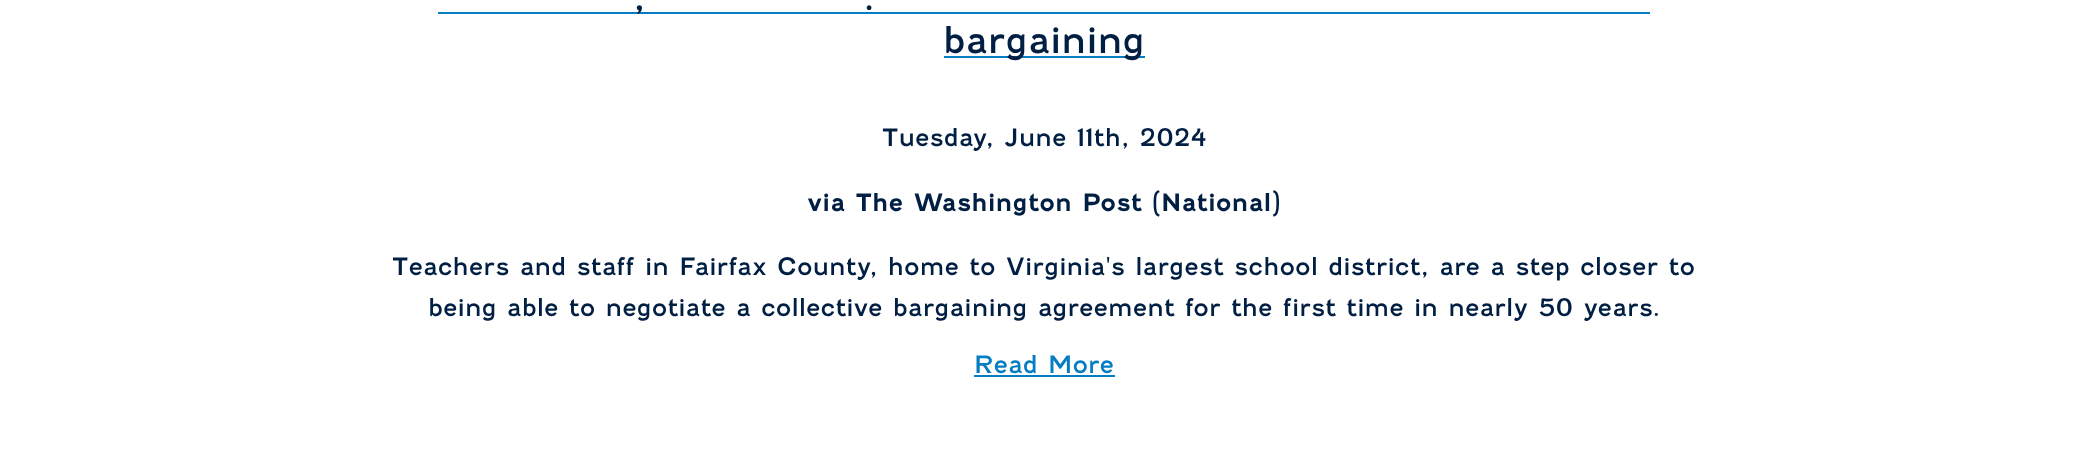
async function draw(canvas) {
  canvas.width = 2087
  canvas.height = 459
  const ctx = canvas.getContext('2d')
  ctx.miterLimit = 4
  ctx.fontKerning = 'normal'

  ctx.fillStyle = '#fff'
  ctx.fillRect(0, 0, 2087, 459)
  ctx.fillStyle = '#057dc2'
  ctx.fillRect(438, 12, 1212, 2)
  ctx.font = '36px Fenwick'
  ctx.fillStyle = '#001f42'
  ctx.fillText(',', 633, 10)
  ctx.fillText('.', 863, 10)
  ctx.fillStyle = '#057dc2'
  ctx.fillRect(944, 56, 201, 2)
  ctx.fillStyle = '#001f42'
  ctx.fillText('bargaining', 943, 53)
  ctx.font = '24px Fenwick'
  ctx.fillText('Tuesday, June 11th, 2024', 882, 146)
  ctx.font = 'bold 24px Fenwick'
  ctx.fillText('via The Washington Post (National)', 807, 211)
  ctx.font = '24px Fenwick'
  ctx.fillText('Teachers and staff in Fairfax County, home to Virginia\'s largest school district, are a step closer to', 392, 275)
  ctx.fillText('being able to negotiate a collective bargaining agreement for the first time in nearly 50 years.', 428, 316)
  ctx.fillStyle = '#057dc2'
  ctx.fillText('Read More', 974, 373)
  ctx.fillRect(974, 375, 141, 2)
}

draw(document.querySelector('canvas'))
